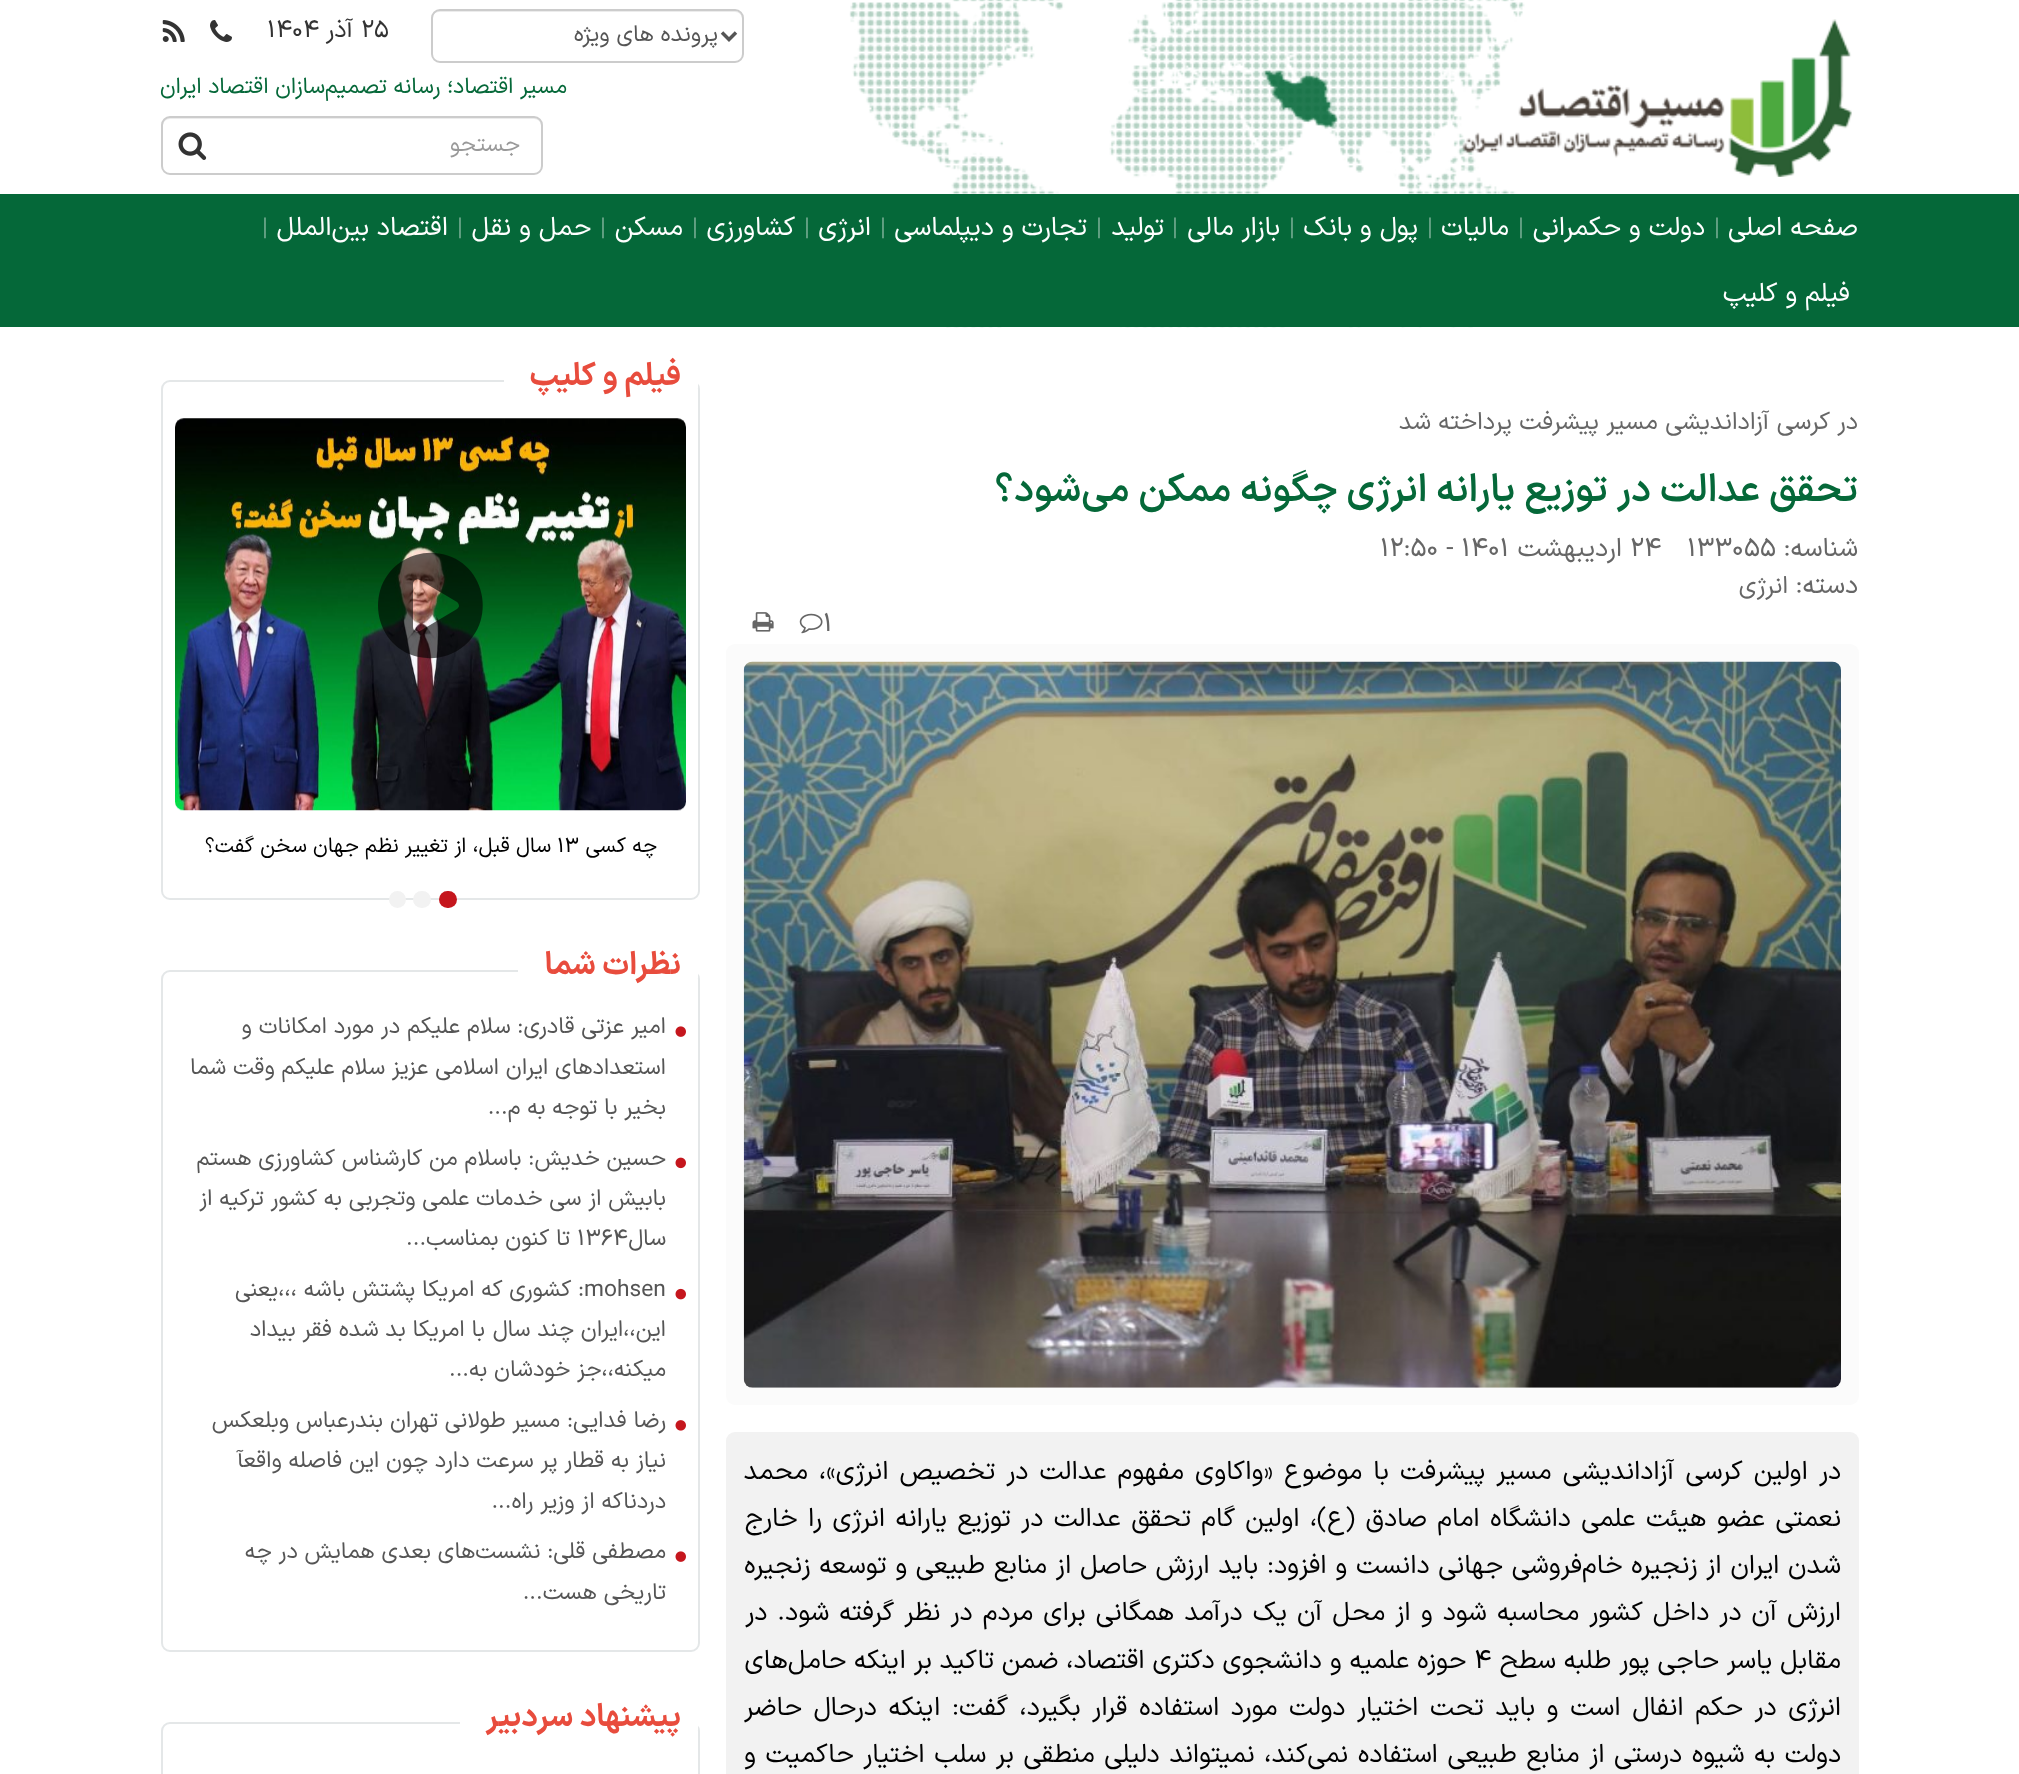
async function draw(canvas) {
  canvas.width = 2019
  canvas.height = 1774
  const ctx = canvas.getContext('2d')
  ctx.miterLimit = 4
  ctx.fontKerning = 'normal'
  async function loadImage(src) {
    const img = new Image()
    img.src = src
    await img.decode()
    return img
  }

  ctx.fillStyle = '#fff'
  ctx.fillRect(0, 0, 2019, 1774)
  ctx.drawImage(await loadImage('image0.png'), 849, 0, 676, 194)
  ctx.fillStyle = '#ececec'
  ctx.beginPath()
  ctx.moveTo(439, 12)
  ctx.lineTo(735, 12)
  ctx.bezierCurveTo(739, 12, 742, 15, 742, 19)
  ctx.lineTo(742, 18)
  ctx.bezierCurveTo(742, 14, 739, 11, 735, 11)
  ctx.lineTo(439, 11)
  ctx.bezierCurveTo(435, 11, 432, 14, 432, 18)
  ctx.lineTo(432, 19)
  ctx.bezierCurveTo(432, 15, 435, 12, 439, 12)
  ctx.closePath()
  ctx.fill()
  ctx.beginPath()
  ctx.roundRect(432, 10, 311, 52, 8)
  ctx.strokeStyle = '#ccc'
  ctx.lineWidth = 2
  ctx.stroke()
  ctx.beginPath()
  ctx.moveTo(722, 32.5)
  ctx.lineTo(729, 39.5)
  ctx.lineTo(736, 32.5)
  ctx.strokeStyle = '#555'
  ctx.lineWidth = 3.5
  ctx.stroke()
  ctx.direction = 'rtl'
  ctx.font = '22.75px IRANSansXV'
  ctx.fillStyle = '#555'
  ctx.fillText('پرونده های ویژه', 718, 41)
  ctx.direction = 'ltr'
  ctx.font = '24.5px IRANSansXV'
  ctx.fillStyle = '#333'
  ctx.fillText('۲۵', 361, 37)
  ctx.direction = 'rtl'
  ctx.fillText('آذر', 353, 37)
  ctx.direction = 'ltr'
  ctx.fillText('۱۴۰۴', 267, 37)
  ctx.drawImage(await loadImage('image1.png'), 210, 20, 22, 22)
  ctx.drawImage(await loadImage('image2.png'), 162, 20, 23, 22)
  ctx.drawImage(await loadImage('image3.png'), 1462, 19, 390, 158)
  ctx.direction = 'rtl'
  ctx.font = '22.25px IRANSansXV'
  ctx.fillStyle = '#056839'
  ctx.fillText('مسیر اقتصاد؛ رسانه تصمیم‌سازان اقتصاد ایران', 567, 93)
  ctx.fillStyle = '#ececec'
  ctx.beginPath()
  ctx.moveTo(170, 119)
  ctx.lineTo(534, 119)
  ctx.bezierCurveTo(538, 119, 541, 122, 541, 126)
  ctx.lineTo(541, 124)
  ctx.bezierCurveTo(541, 120, 538, 117, 534, 117)
  ctx.lineTo(170, 117)
  ctx.bezierCurveTo(166, 117, 163, 120, 163, 124)
  ctx.lineTo(163, 126)
  ctx.bezierCurveTo(163, 122, 166, 119, 170, 119)
  ctx.closePath()
  ctx.fill()
  ctx.beginPath()
  ctx.roundRect(162, 117, 380, 57, 8)
  ctx.strokeStyle = '#ccc'
  ctx.lineWidth = 2
  ctx.stroke()
  ctx.font = '22.75px IRANSansXV'
  ctx.fillStyle = '#999'
  ctx.fillText('جستجو', 520, 151)
  ctx.drawImage(await loadImage('image4.png'), 178, 132, 29, 28)
  ctx.fillStyle = '#056839'
  ctx.fillRect(0, 194, 2019, 133)
  ctx.drawImage(await loadImage('image5.png'), 946, 327, 527, 1)
  ctx.font = '26.25px IRANSansXV'
  ctx.fillStyle = '#fff'
  ctx.fillText('صفحه اصلی', 1858, 235)
  ctx.direction = 'ltr'
  ctx.font = '24.5px IRANSansXV'
  ctx.fillStyle = '#69a488'
  ctx.fillText('|', 1714, 235)
  ctx.direction = 'rtl'
  ctx.font = '26.25px IRANSansXV'
  ctx.fillStyle = '#fff'
  ctx.fillText('دولت و حکمرانی', 1705, 235)
  ctx.direction = 'ltr'
  ctx.font = '24.5px IRANSansXV'
  ctx.fillStyle = '#69a488'
  ctx.fillText('|', 1518, 235)
  ctx.direction = 'rtl'
  ctx.font = '26.25px IRANSansXV'
  ctx.fillStyle = '#fff'
  ctx.fillText('مالیات', 1509, 235)
  ctx.direction = 'ltr'
  ctx.font = '24.5px IRANSansXV'
  ctx.fillStyle = '#69a488'
  ctx.fillText('|', 1427, 235)
  ctx.direction = 'rtl'
  ctx.font = '26.25px IRANSansXV'
  ctx.fillStyle = '#fff'
  ctx.fillText('پول و بانک', 1418, 235)
  ctx.direction = 'ltr'
  ctx.font = '24.5px IRANSansXV'
  ctx.fillStyle = '#69a488'
  ctx.fillText('|', 1289, 235)
  ctx.direction = 'rtl'
  ctx.font = '26.25px IRANSansXV'
  ctx.fillStyle = '#fff'
  ctx.fillText('بازار مالی', 1280, 235)
  ctx.direction = 'ltr'
  ctx.font = '24.5px IRANSansXV'
  ctx.fillStyle = '#69a488'
  ctx.fillText('|', 1172, 235)
  ctx.direction = 'rtl'
  ctx.font = '26.25px IRANSansXV'
  ctx.fillStyle = '#fff'
  ctx.fillText('تولید', 1164, 235)
  ctx.direction = 'ltr'
  ctx.font = '24.5px IRANSansXV'
  ctx.fillStyle = '#69a488'
  ctx.fillText('|', 1096, 235)
  ctx.direction = 'rtl'
  ctx.font = '26.25px IRANSansXV'
  ctx.fillStyle = '#fff'
  ctx.fillText('تجارت و دیپلماسی', 1087, 235)
  ctx.direction = 'ltr'
  ctx.font = '24.5px IRANSansXV'
  ctx.fillStyle = '#69a488'
  ctx.fillText('|', 880, 235)
  ctx.direction = 'rtl'
  ctx.font = '26.25px IRANSansXV'
  ctx.fillStyle = '#fff'
  ctx.fillText('انرژی', 871, 235)
  ctx.direction = 'ltr'
  ctx.font = '24.5px IRANSansXV'
  ctx.fillStyle = '#69a488'
  ctx.fillText('|', 804, 235)
  ctx.direction = 'rtl'
  ctx.font = '26.25px IRANSansXV'
  ctx.fillStyle = '#fff'
  ctx.fillText('کشاورزی', 795, 235)
  ctx.direction = 'ltr'
  ctx.font = '24.5px IRANSansXV'
  ctx.fillStyle = '#69a488'
  ctx.fillText('|', 692, 235)
  ctx.direction = 'rtl'
  ctx.font = '26.25px IRANSansXV'
  ctx.fillStyle = '#fff'
  ctx.fillText('مسکن', 683, 235)
  ctx.direction = 'ltr'
  ctx.font = '24.5px IRANSansXV'
  ctx.fillStyle = '#69a488'
  ctx.fillText('|', 600, 235)
  ctx.direction = 'rtl'
  ctx.font = '26.25px IRANSansXV'
  ctx.fillStyle = '#fff'
  ctx.fillText('حمل و نقل', 591, 235)
  ctx.direction = 'ltr'
  ctx.font = '24.5px IRANSansXV'
  ctx.fillStyle = '#69a488'
  ctx.fillText('|', 457, 235)
  ctx.direction = 'rtl'
  ctx.font = '26.25px IRANSansXV'
  ctx.fillStyle = '#fff'
  ctx.fillText('اقتصاد بین‌الملل', 448, 235)
  ctx.direction = 'ltr'
  ctx.font = '24.5px IRANSansXV'
  ctx.fillStyle = '#69a488'
  ctx.fillText('|', 262, 235)
  ctx.direction = 'rtl'
  ctx.font = '26.25px IRANSansXV'
  ctx.fillStyle = '#fff'
  ctx.fillText('فیلم و کلیپ', 1850, 301)
  ctx.font = '24.5px IRANSansXV'
  ctx.fillStyle = '#666'
  ctx.fillText('در کرسی آزاداندیشی مسیر پیشرفت پرداخته شد', 1858, 429)
  ctx.font = '600 38.5px IRANSansXV'
  ctx.fillStyle = '#056839'
  ctx.fillText('تحقق عدالت در توزیع یارانه انرژی چگونه ممکن می‌شود؟', 1858, 501)
  ctx.font = '26.25px IRANSansXV'
  ctx.fillStyle = '#666'
  ctx.fillText('شناسه:', 1858, 556)
  ctx.direction = 'ltr'
  ctx.fillText('۱۳۳۰۵۵', 1687, 556)
  ctx.fillText('۲۴', 1630, 556)
  ctx.direction = 'rtl'
  ctx.fillText('اردیبهشت', 1622, 556)
  ctx.direction = 'ltr'
  ctx.fillText('۱۲:۵۰ - ۱۴۰۱', 1380, 556)
  ctx.direction = 'rtl'
  ctx.fillText('دسته:', 1858, 593)
  ctx.font = '24.5px IRANSansXV'
  ctx.fillText('انرژی', 1788, 593)
  ctx.direction = 'ltr'
  ctx.font = '26.25px IRANSansXV'
  ctx.fillText('۱', 823, 631)
  ctx.drawImage(await loadImage('image6.png'), 799, 613, 24, 21)
  ctx.drawImage(await loadImage('image7.png'), 752, 612, 22, 20)
  ctx.fillStyle = '#fbfbfb'
  ctx.beginPath()
  ctx.roundRect(726, 644, 1133, 761, 9)
  ctx.fill()
  ctx.drawImage(await loadImage('image8.png'), 743, 661, 1098, 727)
  ctx.fillStyle = '#f2f2f2'
  ctx.beginPath()
  ctx.roundRect(726, 1432, 1133, 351, 9)
  ctx.fill()
  ctx.wordSpacing = '3.25px'
  ctx.direction = 'rtl'
  ctx.fillStyle = '#000'
  ctx.fillText('در اولین کرسی آزاداندیشی مسیر پیشرفت با موضوع «واکاوی مفهوم عدالت در تخصیص انرژی»، محمد', 1841, 1479)
  ctx.wordSpacing = '2.6px'
  ctx.fillText('نعمتی عضو هیئت علمی دانشگاه امام صادق (ع)، اولین گام تحقق عدالت در توزیع یارانه انرژی را خارج', 1841, 1526)
  ctx.wordSpacing = '0.9px'
  ctx.fillText('شدن ایران از زنجیره خام‌فروشی جهانی دانست و افزود: باید ارزش حاصل از منابع طبیعی و توسعه زنجیره', 1841, 1573)
  ctx.wordSpacing = '2.25px'
  ctx.fillText('ارزش آن در داخل کشور محاسبه شود و از محل آن یک درآمد همگانی برای مردم در نظر گرفته شود. در', 1841, 1620)
  ctx.wordSpacing = '0px'
  ctx.fillText('مقابل یاسر حاجی پور طلبه سطح', 1841, 1668)
  ctx.direction = 'ltr'
  ctx.fillText('۴', 1474, 1668)
  ctx.direction = 'rtl'
  ctx.fillText('حوزه علمیه و دانشجوی دکتری اقتصاد، ضمن تاکید بر اینکه حامل‌های', 1466, 1668)
  ctx.wordSpacing = '3.75px'
  ctx.fillText('انرژی در حکم انفال است و باید تحت اختیار دولت مورد استفاده قرار بگیرد، گفت: اینکه درحال حاضر', 1841, 1715)
  ctx.wordSpacing = '1.75px'
  ctx.fillText('دولت به شیوه درستی از منابع طبیعی استفاده نمی‌کند، نمیتواند دلیلی منطقی بر سلب اختیار حاکمیت و', 1841, 1762)
  ctx.beginPath()
  ctx.roundRect(162, 381, 537, 518, 8)
  ctx.strokeStyle = '#e4e7e8'
  ctx.stroke()
  ctx.fillStyle = '#fff'
  ctx.fillRect(504, 380, 194, 8)
  ctx.wordSpacing = '0px'
  ctx.font = 'bold 31.5px IRANSansXV'
  ctx.fillStyle = '#e84c3d'
  ctx.fillText('فیلم و کلیپ', 681, 385)
  ctx.drawImage(await loadImage('image9.png'), 175, 418, 511, 393)
  ctx.fillStyle = '#00000099'
  ctx.beginPath()
  ctx.moveTo(404, 560)
  ctx.bezierCurveTo(413, 555, 424, 552, 434, 553)
  ctx.bezierCurveTo(486, 556, 501, 625, 457, 651)
  ctx.bezierCurveTo(448, 656, 437, 659, 427, 658)
  ctx.bezierCurveTo(375, 655, 360, 586, 404, 560)
  ctx.closePath()
  ctx.moveTo(457, 609)
  ctx.bezierCurveTo(458, 608, 459, 607, 459, 606)
  ctx.bezierCurveTo(459, 604, 458, 603, 457, 602)
  ctx.lineTo(420, 580)
  ctx.bezierCurveTo(418, 579, 417, 579, 415, 580)
  ctx.bezierCurveTo(414, 581, 413, 582, 413, 584)
  ctx.lineTo(413, 627)
  ctx.bezierCurveTo(413, 629, 414, 630, 415, 631)
  ctx.lineTo(417, 632)
  ctx.lineTo(420, 631)
  ctx.closePath()
  ctx.fill()
  ctx.font = '21px IRANSansXV'
  ctx.fillStyle = '#000'
  ctx.fillText('چه کسی', 657, 852)
  ctx.direction = 'ltr'
  ctx.fillText('۱۳', 557, 852)
  ctx.direction = 'rtl'
  ctx.fillText('سال قبل، از تغییر نظم جهان سخن گفت؟', 551, 852)
  ctx.fillStyle = '#c5161d'
  ctx.beginPath()
  ctx.roundRect(439, 891, 18, 17, 8.5)
  ctx.fill()
  ctx.fillStyle = '#f2f2f2'
  ctx.beginPath()
  ctx.roundRect(413, 891, 18, 17, 8.5)
  ctx.fill()
  ctx.beginPath()
  ctx.arc(397.5, 899.5, 8.5, 0, 2 * Math.PI)
  ctx.fill()
  ctx.beginPath()
  ctx.roundRect(162, 971, 537, 680, 8)
  ctx.stroke()
  ctx.fillStyle = '#fff'
  ctx.fillRect(518, 970, 180, 8)
  ctx.font = 'bold 31.5px IRANSansXV'
  ctx.fillStyle = '#e84c3d'
  ctx.fillText('نظرات شما', 681, 974)
  ctx.drawImage(await loadImage('image10.png'), 675, 1026, 11, 11)
  ctx.font = '22.75px IRANSansXV'
  ctx.fillStyle = '#555'
  ctx.fillText('امیر عزتی قادری: سلام علیکم', 666, 1033)
  ctx.fillText('در مورد امکانات و', 400, 1033)
  ctx.fillText('استعدادهای ایران اسلامی عزیز', 666, 1074)
  ctx.fillText('سلام علیکم وقت شما', 385, 1074)
  ctx.fillText('بخیر با توجه به م...', 666, 1114)
  ctx.drawImage(await loadImage('image11.png'), 675, 1157, 11, 12)
  ctx.fillText('حسین خدیش: باسلام من کارشناس کشاورزی هستم', 666, 1165)
  ctx.fillText('بابیش از سی خدمات علمی وتجربی به کشور ترکیه از', 666, 1205)
  ctx.fillText('سال', 666, 1245)
  ctx.direction = 'ltr'
  ctx.fillText('۱۳۶۴', 577, 1245)
  ctx.direction = 'rtl'
  ctx.fillText('تا کنون بمناسب...', 570, 1245)
  ctx.drawImage(await loadImage('image12.png'), 675, 1288, 11, 12)
  ctx.direction = 'ltr'
  ctx.fillText('mohsen', 584, 1296)
  ctx.direction = 'rtl'
  ctx.fillText(': کشوری که امریکا پشتش باشه ،،،یعنی', 584, 1296)
  ctx.fillText('این،،ایران چند سال', 666, 1336)
  ctx.fillText('با امریکا بد شده فقر بیداد', 485, 1336)
  ctx.fillText('میکنه،،جز خودشان به...', 666, 1376)
  ctx.drawImage(await loadImage('image13.png'), 675, 1420, 11, 11)
  ctx.fillText('رضا فدایی: مسیر طولانی‌ تهران بندرعباس وبلعکس', 666, 1427)
  ctx.fillText('نیاز به قطار پر سرعت دارد چون این فاصله واقعآ', 666, 1467)
  ctx.fillText('دردناکه از وزیر راه...', 666, 1508)
  ctx.drawImage(await loadImage('image10.png'), 675, 1551, 11, 11)
  ctx.fillText('مصطفی قلی: نشست‌های بعدی همایش در چه', 666, 1558)
  ctx.fillText('تاریخی هست...', 666, 1599)
  ctx.beginPath()
  ctx.roundRect(162, 1723, 537, 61, 8)
  ctx.stroke()
  ctx.fillStyle = '#fff'
  ctx.fillRect(460, 1722, 238, 8)
  ctx.font = 'bold 31.5px IRANSansXV'
  ctx.fillStyle = '#e84c3d'
  ctx.fillText('پیشنهاد سردبیر', 681, 1726)
}

draw(document.querySelector('canvas'))
